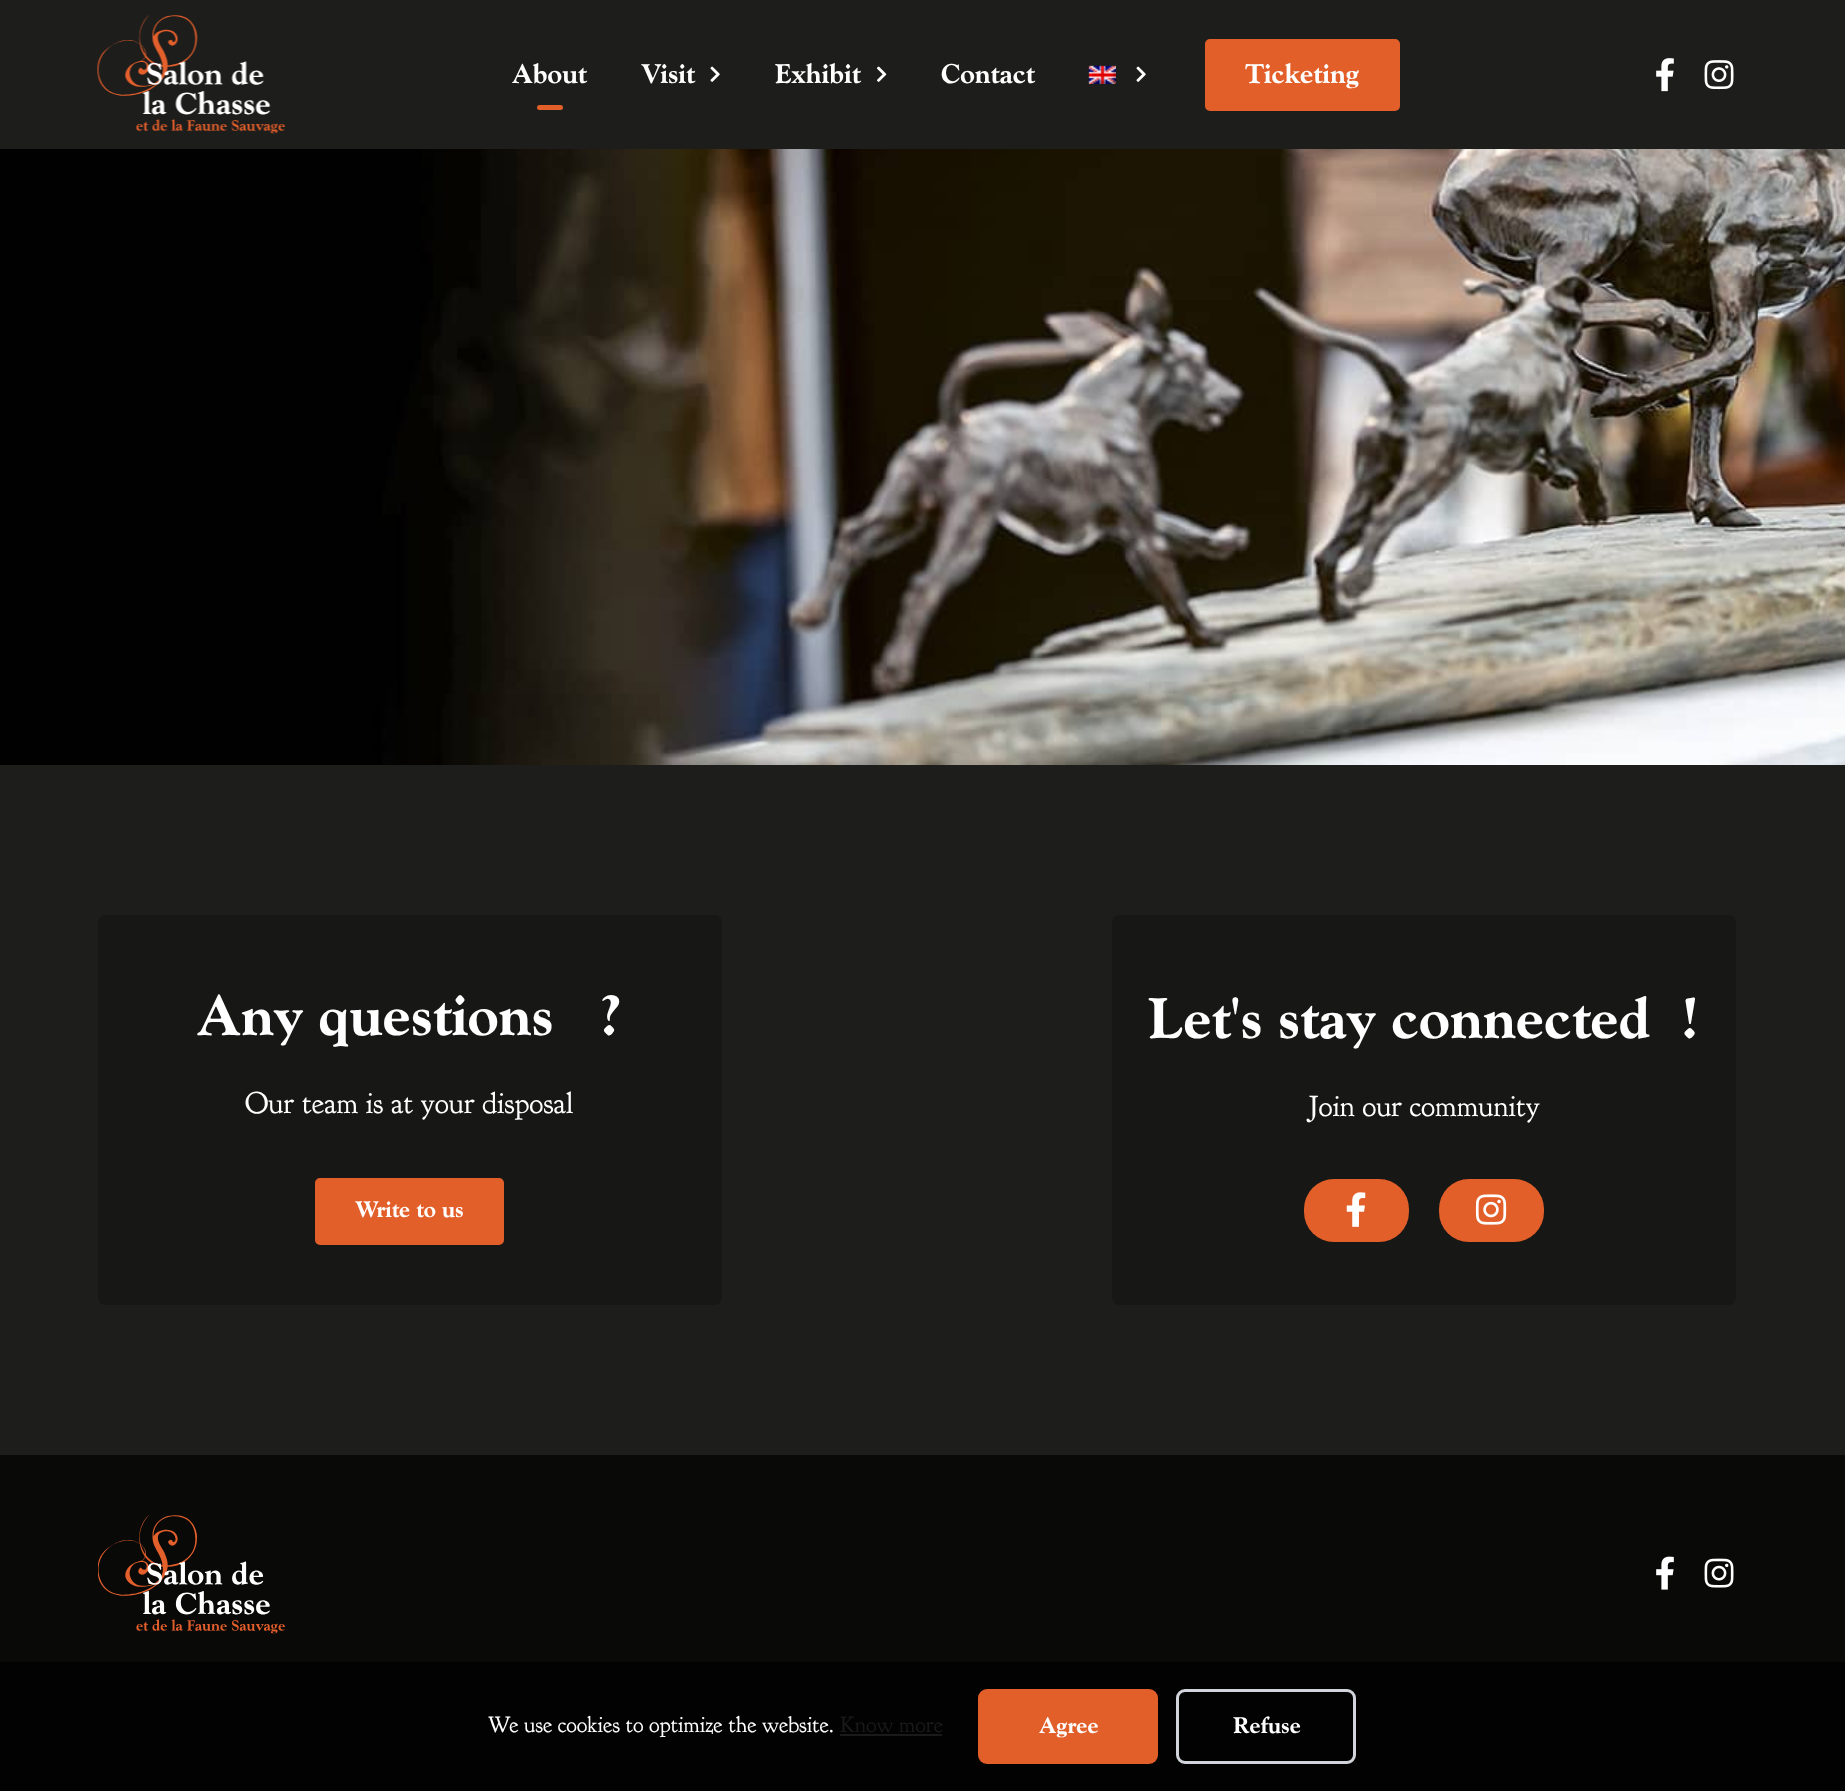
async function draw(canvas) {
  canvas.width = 1845
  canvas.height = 1791
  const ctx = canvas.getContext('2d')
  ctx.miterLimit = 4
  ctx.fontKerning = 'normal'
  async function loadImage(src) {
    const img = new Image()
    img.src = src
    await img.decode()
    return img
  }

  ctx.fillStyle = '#fff'
  ctx.fillRect(0, 0, 1845, 1791)
  ctx.fillStyle = '#1d1d1c'
  ctx.fillRect(0, 0, 1845, 149)
  ctx.drawImage(await loadImage('image0.png'), 97, 15, 189, 119)
  ctx.font = '800 27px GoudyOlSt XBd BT'
  ctx.fillStyle = '#fff'
  ctx.fillText('About', 512, 83)
  ctx.fillStyle = '#e35f2a'
  ctx.beginPath()
  ctx.roundRect(537, 105, 26, 5, 2.5)
  ctx.fill()
  ctx.fillStyle = '#fff'
  ctx.fillText('Visit', 641, 83)
  ctx.drawImage(await loadImage('image1.png'), 710, 66, 10, 16)
  ctx.fillText('Exhibit', 775, 83)
  ctx.drawImage(await loadImage('image2.png'), 877, 66, 10, 16)
  ctx.fillText('Contact', 941, 83)
  ctx.drawImage(await loadImage('image3.png'), 1088, 65, 28, 19)
  ctx.drawImage(await loadImage('image1.png'), 1136, 66, 10, 16)
  ctx.fillStyle = '#e35f2a'
  ctx.beginPath()
  ctx.roundRect(1206, 40, 193, 70, 4)
  ctx.fill()
  ctx.strokeStyle = '#e35f2a'
  ctx.lineWidth = 2
  ctx.stroke()
  ctx.fillStyle = '#fff'
  ctx.fillText('Ticketing', 1245, 83)
  ctx.drawImage(await loadImage('image4.png'), 1656, 58, 18, 34)
  ctx.drawImage(await loadImage('image5.png'), 1704, 60, 30, 30)
  ctx.drawImage(await loadImage('image6.png'), 0, 149, 1845, 616)
  ctx.fillStyle = '#1d1d1c'
  ctx.fillRect(0, 765, 1845, 690)
  ctx.fillStyle = '#171716'
  ctx.beginPath()
  ctx.roundRect(98, 915, 624, 390, 8)
  ctx.fill()
  ctx.font = '800 57px GoudyOlSt XBd BT'
  ctx.fillStyle = '#fff'
  ctx.fillText('Any questions', 197, 1035)
  ctx.fillText('?', 600, 1035)
  ctx.font = '30px "Goudy Bookletter 1911"'
  ctx.fillText('Our team is at your disposal', 245, 1113)
  ctx.fillStyle = '#e35f2a'
  ctx.beginPath()
  ctx.roundRect(316, 1179, 187, 65, 4)
  ctx.fill()
  ctx.stroke()
  ctx.font = '800 22.5px GoudyOlSt XBd BT'
  ctx.fillStyle = '#fff'
  ctx.fillText('Write to us', 355, 1217)
  ctx.fillStyle = '#171716'
  ctx.beginPath()
  ctx.roundRect(1112, 915, 624, 390, 8)
  ctx.fill()
  ctx.font = '800 57px GoudyOlSt XBd BT'
  ctx.fillStyle = '#fff'
  ctx.fillText('Let\'s stay connected', 1148, 1038)
  ctx.fillText('!', 1681, 1038)
  ctx.font = '30px "Goudy Bookletter 1911"'
  ctx.fillText('Join our community', 1309, 1116)
  ctx.fillStyle = '#e35f2a'
  ctx.beginPath()
  ctx.roundRect(1304, 1179, 105, 63, 30)
  ctx.fill()
  ctx.drawImage(await loadImage('image7.png'), 1346, 1192, 20, 35)
  ctx.beginPath()
  ctx.roundRect(1439, 1179, 105, 63, 30)
  ctx.fill()
  ctx.drawImage(await loadImage('image8.png'), 1475, 1194, 32, 31)
  ctx.fillStyle = '#090908'
  ctx.fillRect(0, 1455, 1845, 207)
  ctx.drawImage(await loadImage('image9.png'), 98, 1515, 187, 119)
  ctx.drawImage(await loadImage('image10.png'), 1656, 1556, 18, 34)
  ctx.drawImage(await loadImage('image11.png'), 1704, 1558, 30, 30)
  ctx.fillStyle = '#020202'
  ctx.fillRect(0, 1662, 1845, 129)
  ctx.font = '22.5px "Goudy Bookletter 1911"'
  ctx.fillStyle = '#fff'
  ctx.fillText('We use cookies to optimize the website.', 488, 1732)
  ctx.fillStyle = '#1a1a1a'
  ctx.fillText('Know more', 840, 1732)
  ctx.fillRect(840, 1734, 102, 2)
  ctx.fillStyle = '#e35f2a'
  ctx.beginPath()
  ctx.roundRect(978, 1689, 180, 75, 9)
  ctx.fill()
  ctx.font = '800 22.5px GoudyOlSt XBd BT'
  ctx.fillStyle = '#fff'
  ctx.fillText('Agree', 1039, 1733)
  ctx.beginPath()
  ctx.roundRect(1177.5, 1690.5, 177, 72, 7.5)
  ctx.strokeStyle = '#d1d5db'
  ctx.lineWidth = 3
  ctx.stroke()
  ctx.fillText('Refuse', 1233, 1733)
}

draw(document.querySelector('canvas'))
